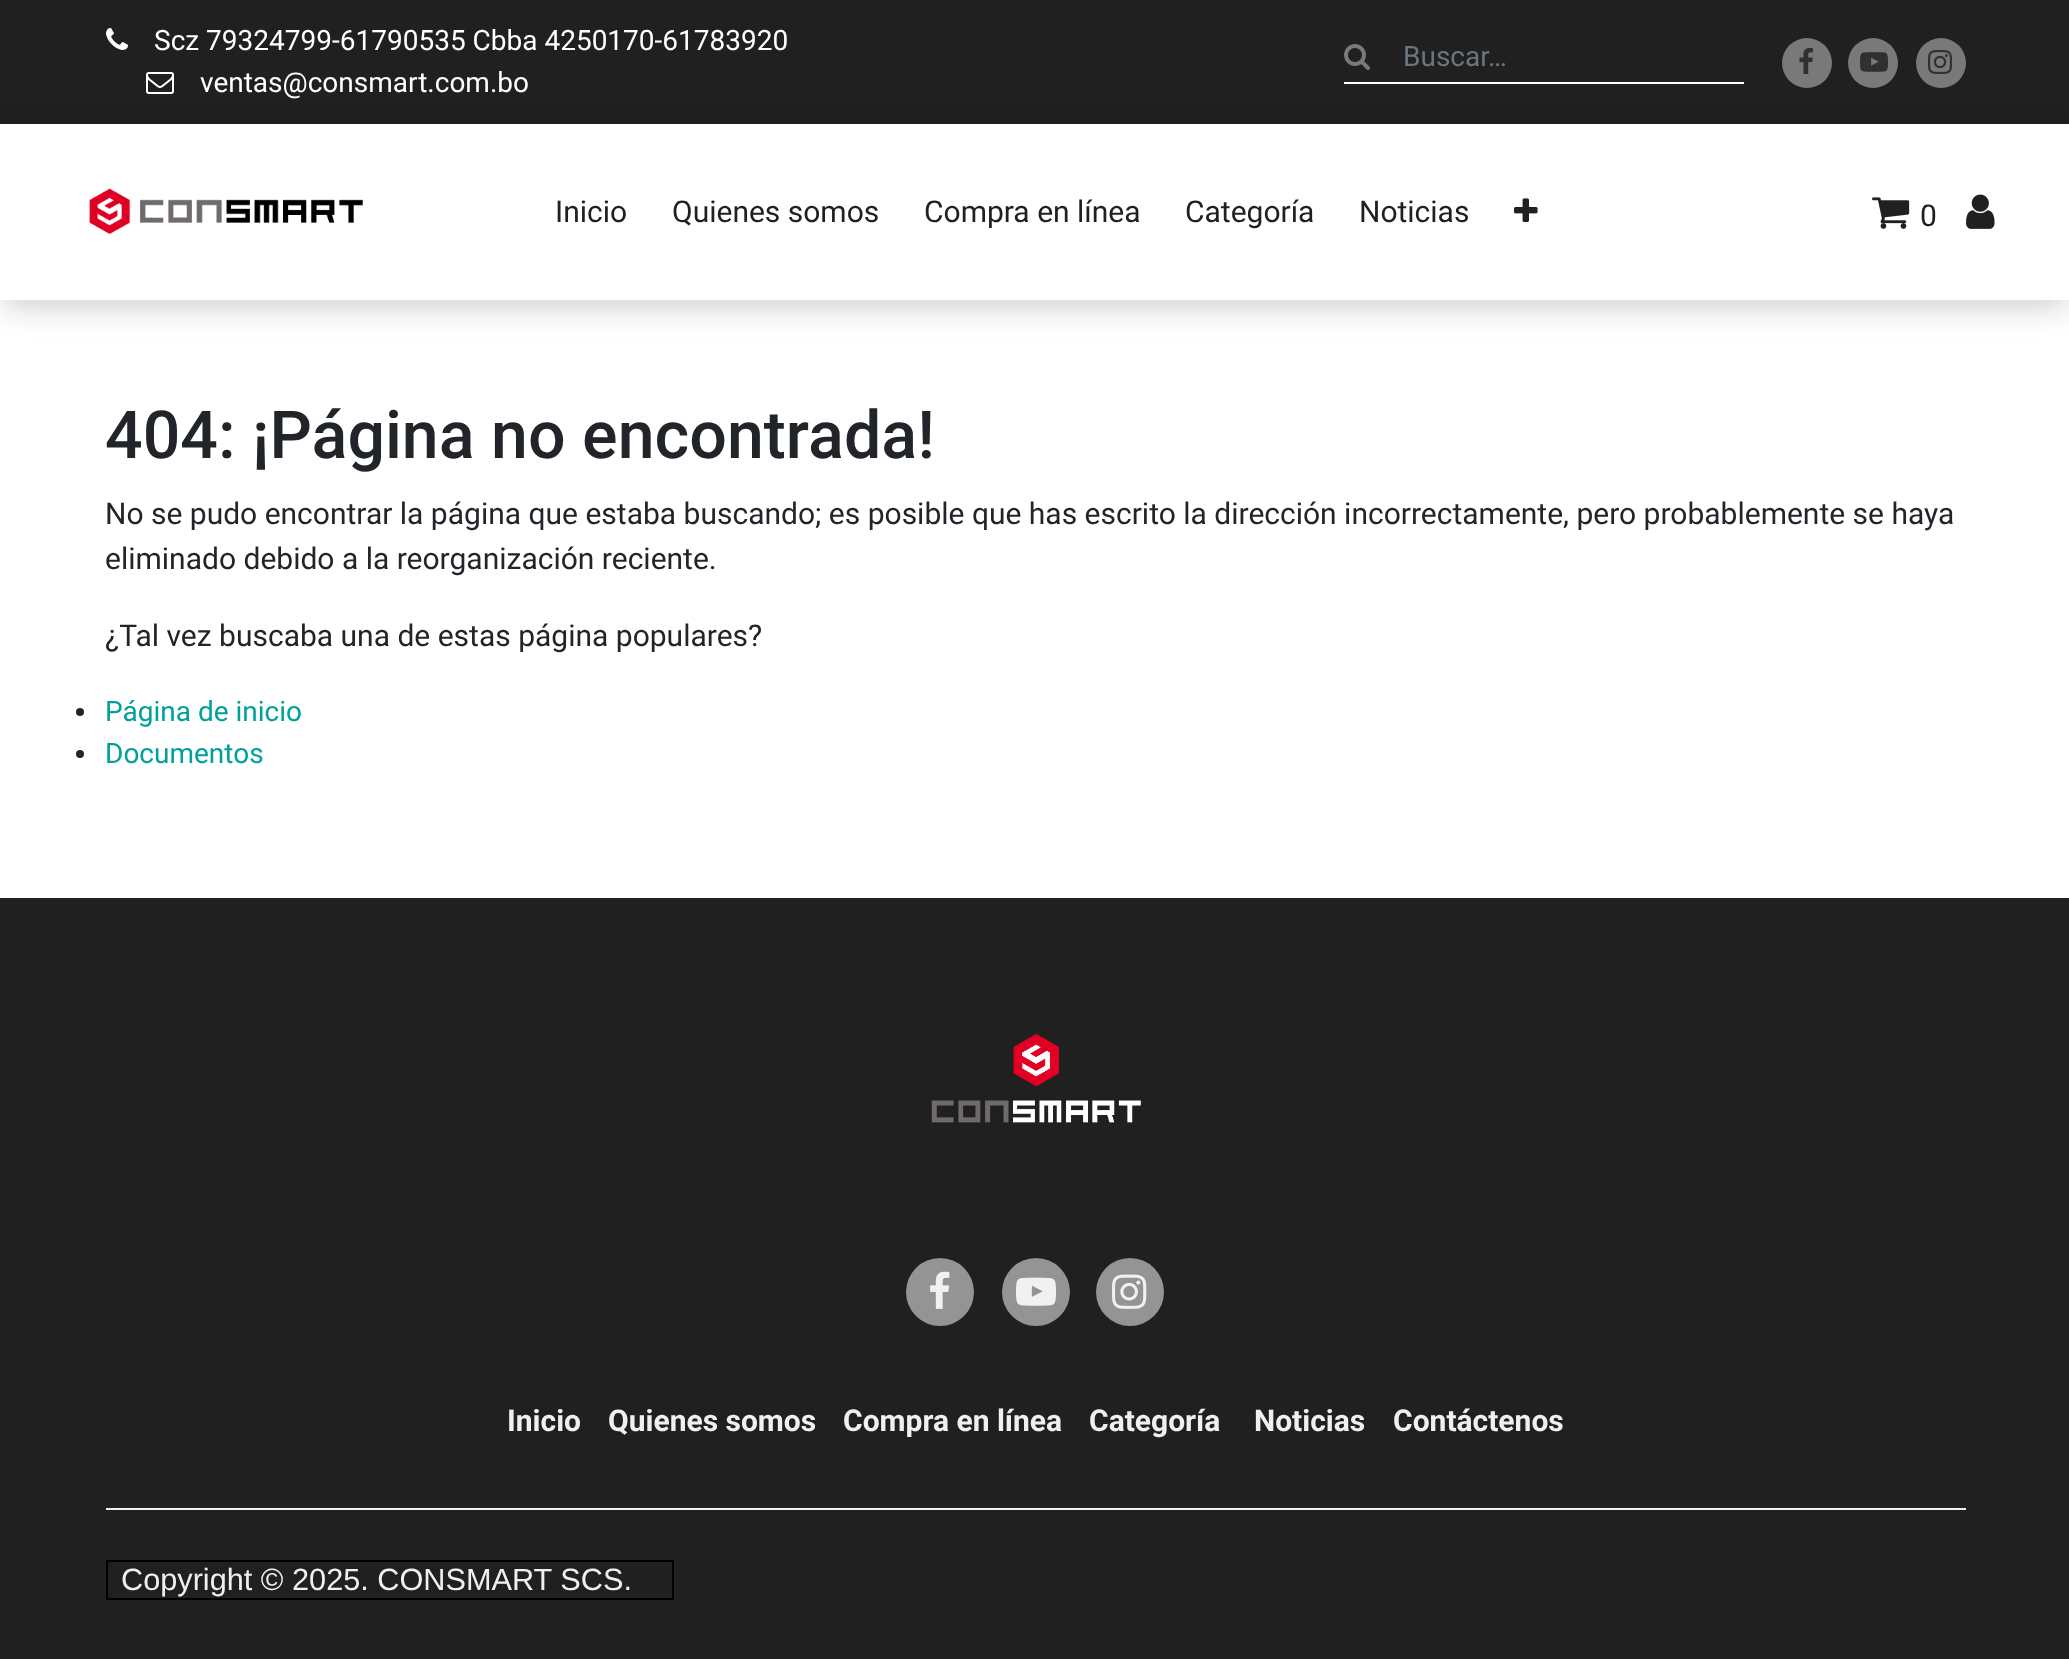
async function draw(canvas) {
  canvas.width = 2069
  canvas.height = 1659
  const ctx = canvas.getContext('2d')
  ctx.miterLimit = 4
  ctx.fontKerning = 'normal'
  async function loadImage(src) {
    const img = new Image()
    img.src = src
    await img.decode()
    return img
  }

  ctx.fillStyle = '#fff'
  ctx.fillRect(0, 0, 2069, 1659)
  ctx.fillStyle = '#202020'
  ctx.fillRect(0, 0, 2069, 124)
  ctx.drawImage(await loadImage('image0.png'), 106, 28, 22, 22)
  ctx.font = '28px Roboto'
  ctx.fillStyle = '#fff'
  ctx.fillText('Scz 79324799-61790535 Cbba 4250170-61783920', 154, 50)
  ctx.drawImage(await loadImage('image1.png'), 146, 72, 28, 22)
  ctx.fillText('ventas@consmart.com.bo', 200, 92)
  ctx.drawImage(await loadImage('image2.png'), 1344, 44, 26, 26)
  ctx.fillRect(1344, 82, 400, 2)
  ctx.fillStyle = '#6c757d'
  ctx.fillText('Buscar…', 1403, 66)
  ctx.fillStyle = '#797979'
  ctx.beginPath()
  ctx.arc(1807, 63, 25, 0, 2 * Math.PI)
  ctx.fill()
  ctx.drawImage(await loadImage('image3.png'), 1799, 48, 14, 26)
  ctx.beginPath()
  ctx.arc(1873, 63, 25, 0, 2 * Math.PI)
  ctx.fill()
  ctx.drawImage(await loadImage('image4.png'), 1860, 52, 28, 20)
  ctx.beginPath()
  ctx.arc(1941, 63, 25, 0, 2 * Math.PI)
  ctx.fill()
  ctx.drawImage(await loadImage('image5.png'), 1928, 50, 24, 24)
  ctx.save()
  ctx.beginPath()
  ctx.moveTo(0, 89)
  ctx.lineTo(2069, 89)
  ctx.lineTo(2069, 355)
  ctx.lineTo(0, 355)
  ctx.closePath()
  ctx.moveTo(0, 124)
  ctx.lineTo(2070, 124)
  ctx.lineTo(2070, 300)
  ctx.lineTo(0, 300)
  ctx.closePath()
  ctx.clip('evenodd')
  ctx.fillStyle = '#00000033'
  ctx.filter = 'blur(16px)'
  ctx.beginPath()
  ctx.rect(4, 138, 2062, 168)
  ctx.fill()
  ctx.filter = 'none'
  ctx.restore()
  ctx.drawImage(await loadImage('image6.png'), 89, 188, 274, 46)
  ctx.font = '30px Roboto'
  ctx.fillStyle = '#202020'
  ctx.fillText('Inicio', 555, 222)
  ctx.fillText('Quienes somos', 672, 222)
  ctx.fillText('Compra en línea', 924, 222)
  ctx.fillText('Categoría', 1185, 222)
  ctx.fillText('Noticias', 1359, 222)
  ctx.drawImage(await loadImage('image7.png'), 1514, 198, 24, 24)
  ctx.drawImage(await loadImage('image8.png'), 1872, 197, 38, 32)
  ctx.fillText('0', 1920, 226)
  ctx.drawImage(await loadImage('image9.png'), 1966, 194, 29, 35)
  ctx.font = '500 66.25px Roboto'
  ctx.fillStyle = '#212529'
  ctx.fillText('404: ¡Página no encontrada!', 105, 458)
  ctx.font = '30px Roboto'
  ctx.fillText('No se pudo encontrar la página que estaba buscando; es posible que has escrito la dirección incorrectamente, pero probablemente se haya', 105, 524)
  ctx.fillText('eliminado debido a la reorganización reciente.', 105, 569)
  ctx.fillText('¿Tal vez buscaba una de estas página populares?', 105, 646)
  ctx.beginPath()
  ctx.arc(80, 712, 4, 0, 2 * Math.PI)
  ctx.fill()
  ctx.font = '28px Roboto'
  ctx.fillStyle = '#00a09d'
  ctx.fillText('Página de inicio', 105, 721)
  ctx.fillStyle = '#212529'
  ctx.beginPath()
  ctx.arc(80, 754, 4, 0, 2 * Math.PI)
  ctx.fill()
  ctx.fillStyle = '#00a09d'
  ctx.fillText('Documentos', 105, 763)
  ctx.fillStyle = '#202020'
  ctx.fillRect(0, 898, 2069, 761)
  ctx.drawImage(await loadImage('image10.png'), 931, 1033, 210, 90)
  ctx.fillStyle = '#949494'
  ctx.beginPath()
  ctx.arc(940, 1292, 34, 0, 2 * Math.PI)
  ctx.fill()
  ctx.drawImage(await loadImage('image11.png'), 930, 1271, 20, 38)
  ctx.beginPath()
  ctx.arc(1036, 1292, 34, 0, 2 * Math.PI)
  ctx.fill()
  ctx.drawImage(await loadImage('image12.png'), 1016, 1277, 40, 29)
  ctx.beginPath()
  ctx.arc(1130, 1292, 34, 0, 2 * Math.PI)
  ctx.fill()
  ctx.drawImage(await loadImage('image13.png'), 1112, 1274, 35, 35)
  ctx.font = 'bold 30px Roboto'
  ctx.fillStyle = '#f0f0f0'
  ctx.fillText('Inicio', 507, 1431)
  ctx.fillText('Quienes somos', 608, 1431)
  ctx.fillText('Compra en línea', 843, 1431)
  ctx.fillText('Categoría', 1089, 1431)
  ctx.fillText('Noticias', 1254, 1431)
  ctx.fillText('Contáctenos', 1393, 1431)
  ctx.fillRect(106, 1508, 1860, 2)
  ctx.fillStyle = '#000'
  ctx.fillRect(106, 1560, 568, 2)
  ctx.fillRect(672, 1560, 2, 40)
  ctx.fillRect(106, 1598, 568, 2)
  ctx.fillRect(106, 1560, 2, 40)
  ctx.font = '30.7px Liberation Sans'
  ctx.fillStyle = '#f0f0f0'
  ctx.fillText('Copyright © 2025. CONSMART SCS.', 121, 1590)
}

draw(document.querySelector('canvas'))
